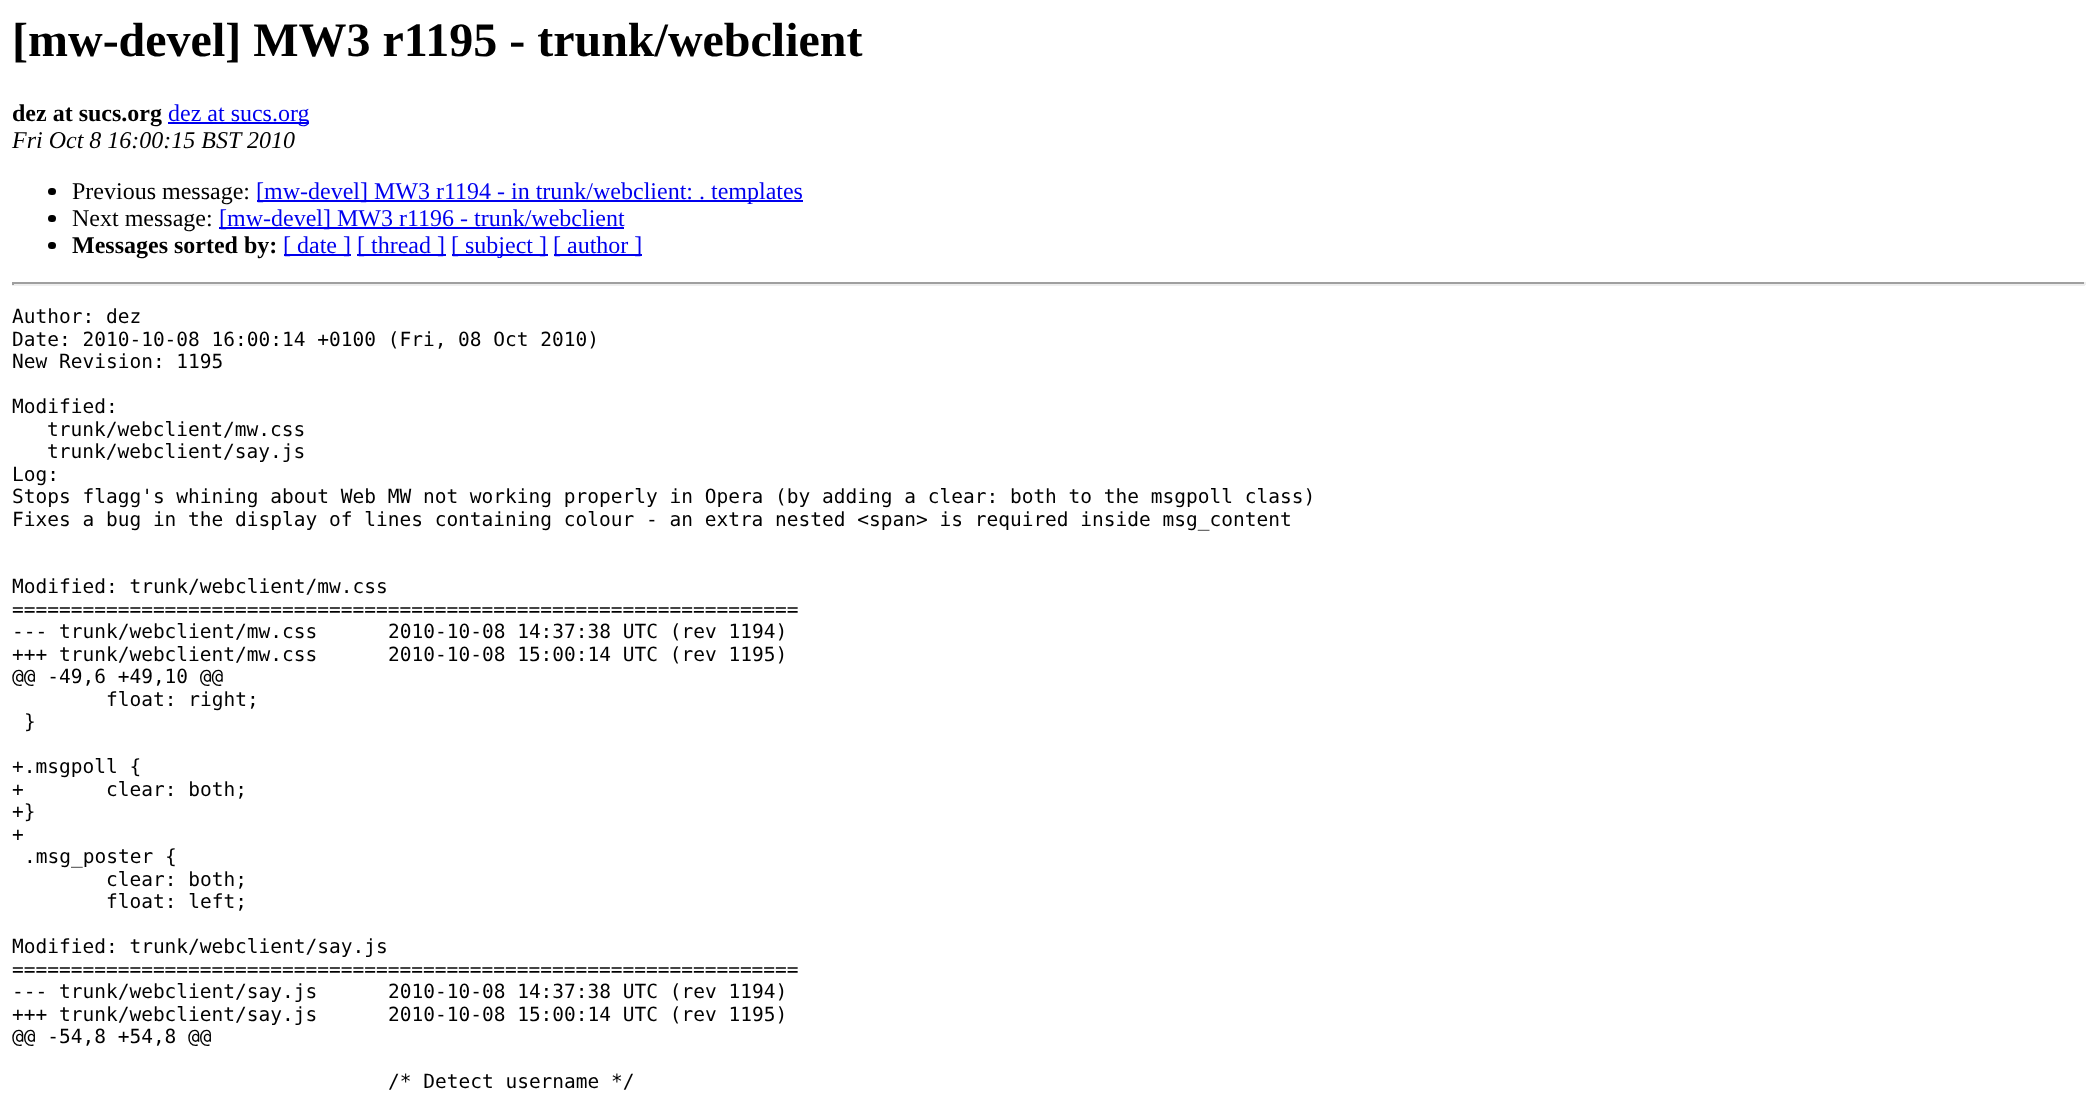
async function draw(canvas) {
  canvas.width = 2097
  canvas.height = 1100
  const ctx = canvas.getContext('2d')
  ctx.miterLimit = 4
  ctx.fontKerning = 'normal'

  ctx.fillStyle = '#fff'
  ctx.fillRect(0, 0, 2097, 1100)
  ctx.font = 'bold 48px Liberation Serif'
  ctx.fillStyle = '#000'
  ctx.fillText('[mw-devel] MW3 r1195 - trunk/webclient', 12, 56)
  ctx.font = 'bold 24px Liberation Serif'
  ctx.fillText('dez at sucs.org', 12, 121)
  ctx.fillStyle = '#00e'
  ctx.fillRect(168, 122, 141, 2)
  ctx.font = '24px Liberation Serif'
  ctx.fillText('dez at sucs.org', 168, 121)
  ctx.font = 'italic 24px Liberation Serif'
  ctx.fillStyle = '#000'
  ctx.fillText('Fri Oct 8 16:00:15 BST 2010', 12, 148)
  ctx.beginPath()
  ctx.roundRect(48, 188, 8, 7, 3.5)
  ctx.fill()
  ctx.font = '24px Liberation Serif'
  ctx.fillText('Previous message:', 72, 199)
  ctx.fillStyle = '#00e'
  ctx.fillRect(257, 200, 546, 2)
  ctx.fillText('[mw-devel] MW3 r1194 - in trunk/webclient: . templates', 256, 199)
  ctx.fillStyle = '#000'
  ctx.beginPath()
  ctx.roundRect(48, 215, 8, 7, 3.5)
  ctx.fill()
  ctx.fillText('Next message:', 72, 226)
  ctx.fillStyle = '#00e'
  ctx.fillRect(219, 227, 405, 2)
  ctx.fillText('[mw-devel] MW3 r1196 - trunk/webclient', 219, 226)
  ctx.fillStyle = '#000'
  ctx.beginPath()
  ctx.roundRect(48, 242, 8, 7, 3.5)
  ctx.fill()
  ctx.font = 'bold 24px Liberation Serif'
  ctx.fillText('Messages sorted by:', 72, 253)
  ctx.fillStyle = '#00e'
  ctx.fillRect(284, 254, 67, 2)
  ctx.font = '24px Liberation Serif'
  ctx.fillText('[ date ]', 283, 253)
  ctx.fillRect(357, 254, 89, 2)
  ctx.fillText('[ thread ]', 357, 253)
  ctx.fillRect(452, 254, 96, 2)
  ctx.fillText('[ subject ]', 451, 253)
  ctx.fillRect(554, 254, 88, 2)
  ctx.fillText('[ author ]', 553, 253)
  ctx.fillStyle = '#9f9f9f'
  ctx.fillRect(12, 282, 2073, 2)
  ctx.fillStyle = '#eee'
  ctx.fillRect(2084, 282, 2, 3)
  ctx.fillRect(12, 284, 2073, 2)
  ctx.fillStyle = '#9f9f9f'
  ctx.fillRect(12, 282, 2, 3)
  ctx.font = '19.5px DejaVu Sans Mono'
  ctx.fillStyle = '#000'
  ctx.fillText('Author: dez', 12, 323)
  ctx.fillText('Date: 2010-10-08 16:00:14 +0100 (Fri, 08 Oct 2010)', 12, 346)
  ctx.fillText('New Revision: 1195', 12, 368)
  ctx.fillText('Modified:', 12, 413)
  ctx.fillText('trunk/webclient/mw.css', 47, 436)
  ctx.fillText('trunk/webclient/say.js', 47, 458)
  ctx.fillText('Log:', 12, 481)
  ctx.fillText('Stops flagg\'s whining about Web MW not working properly in Opera (by adding a clear: both to the msgpoll class)', 12, 503)
  ctx.fillText('Fixes a bug in the display of lines containing colour - an extra nested <span> is required inside msg_content', 12, 526)
  ctx.fillText('Modified: trunk/webclient/mw.css', 12, 593)
  ctx.fillText('===================================================================', 12, 616)
  ctx.fillText('--- trunk/webclient/mw.css', 12, 638)
  ctx.fillText('2010-10-08 14:37:38 UTC (rev 1194)', 388, 638)
  ctx.fillText('+++ trunk/webclient/mw.css', 12, 661)
  ctx.fillText('2010-10-08 15:00:14 UTC (rev 1195)', 388, 661)
  ctx.fillText('@@ -49,6 +49,10 @@', 12, 683)
  ctx.fillText('float: right;', 106, 706)
  ctx.fillText('}', 24, 728)
  ctx.fillText('+.msgpoll {', 12, 773)
  ctx.fillText('+', 12, 796)
  ctx.fillText('clear: both;', 106, 796)
  ctx.fillText('+}', 12, 818)
  ctx.fillText('+', 12, 841)
  ctx.fillText('.msg_poster {', 24, 863)
  ctx.fillText('clear: both;', 106, 886)
  ctx.fillText('float: left;', 106, 908)
  ctx.fillText('Modified: trunk/webclient/say.js', 12, 953)
  ctx.fillText('===================================================================', 12, 976)
  ctx.fillText('--- trunk/webclient/say.js', 12, 998)
  ctx.fillText('2010-10-08 14:37:38 UTC (rev 1194)', 388, 998)
  ctx.fillText('+++ trunk/webclient/say.js', 12, 1021)
  ctx.fillText('2010-10-08 15:00:14 UTC (rev 1195)', 388, 1021)
  ctx.fillText('@@ -54,8 +54,8 @@', 12, 1043)
  ctx.fillText('/* Detect username */', 388, 1088)
}

draw(document.querySelector('canvas'))
